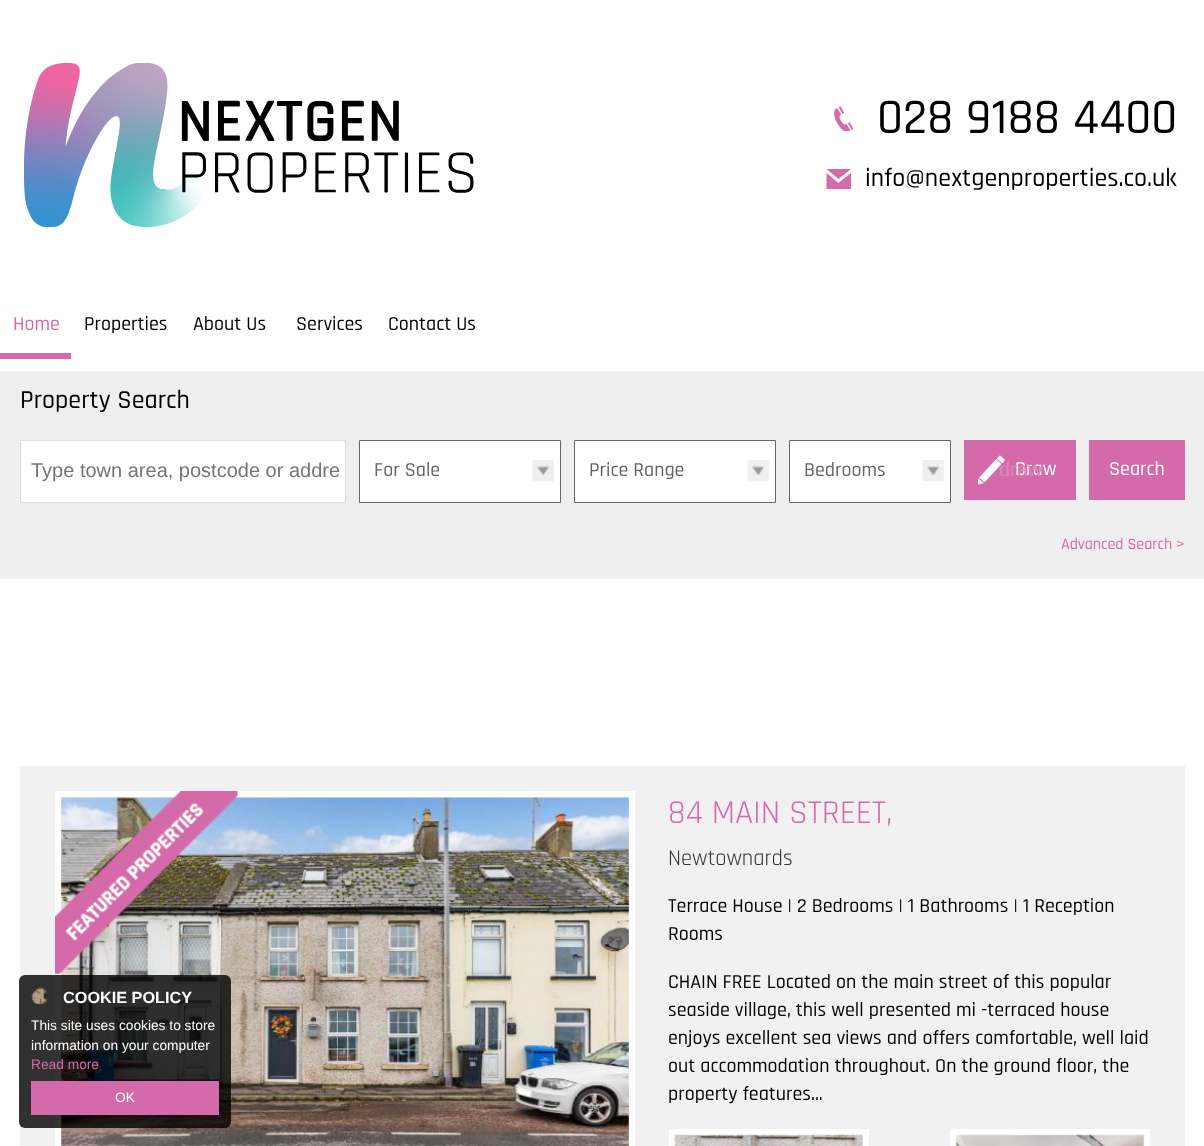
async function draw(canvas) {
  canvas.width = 1204
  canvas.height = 1146
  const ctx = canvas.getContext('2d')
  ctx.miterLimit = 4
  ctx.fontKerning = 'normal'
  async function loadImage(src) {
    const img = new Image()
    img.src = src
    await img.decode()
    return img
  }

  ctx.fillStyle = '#fff'
  ctx.fillRect(0, 0, 1204, 1146)
  ctx.drawImage(await loadImage('image0.png'), 24, 63, 450, 165)
  ctx.drawImage(await loadImage('image1.png'), 834, 106, 20, 25)
  ctx.font = '500 50px Rajdhani'
  ctx.fillStyle = '#000'
  ctx.fillText('028 9188 4400', 877, 133)
  ctx.fillStyle = '#d46aa9'
  ctx.beginPath()
  ctx.moveTo(838.5, 179)
  ctx.lineTo(826.5, 169)
  ctx.lineTo(851, 169)
  ctx.closePath()
  ctx.moveTo(838.5, 183)
  ctx.lineTo(826.5, 173)
  ctx.lineTo(826.5, 189)
  ctx.lineTo(851, 189)
  ctx.lineTo(851, 173)
  ctx.closePath()
  ctx.fill()
  ctx.font = '500 26px Rajdhani'
  ctx.fillStyle = '#000'
  ctx.fillText('info@nextgenproperties.co.uk', 865, 186)
  ctx.fillStyle = '#d46aa9'
  ctx.fillRect(0, 353, 71, 6)
  ctx.font = '500 20px Rajdhani'
  ctx.fillText('Home', 13, 330)
  ctx.fillStyle = '#000'
  ctx.fillText('Properties', 84, 330)
  ctx.fillText('About Us', 193, 330)
  ctx.fillText('Services', 296, 330)
  ctx.fillText('Contact Us', 388, 330)
  ctx.fillStyle = '#efefef'
  ctx.fillRect(0, 371, 1204, 208)
  ctx.font = '500 26px Rajdhani'
  ctx.fillStyle = '#000'
  ctx.fillText('Property Search', 20, 408)
  ctx.fillStyle = '#fff'
  ctx.beginPath()
  ctx.rect(20.5, 440.5, 325, 62)
  ctx.fill()
  ctx.strokeStyle = '#ddd'
  ctx.stroke()
  ctx.font = '20px Liberation Sans'
  ctx.fillStyle = '#757575'
  ctx.fillText('Type town area, postcode or addre', 31, 477)
  ctx.fillStyle = '#fff'
  ctx.beginPath()
  ctx.rect(359.5, 440.5, 201, 62)
  ctx.fill()
  ctx.strokeStyle = '#666'
  ctx.stroke()
  ctx.drawImage(await loadImage('image2.png'), 532, 460, 22, 22)
  ctx.font = '500 20px Rajdhani'
  ctx.fillStyle = '#646464'
  ctx.fillText('For Sale', 374, 476)
  ctx.fillStyle = '#fff'
  ctx.beginPath()
  ctx.rect(574.5, 440.5, 201, 62)
  ctx.fill()
  ctx.stroke()
  ctx.drawImage(await loadImage('image3.png'), 747, 460, 22, 22)
  ctx.fillStyle = '#646464'
  ctx.fillText('Price Range', 589, 476)
  ctx.fillStyle = '#fff'
  ctx.beginPath()
  ctx.rect(789.5, 440.5, 161, 62)
  ctx.fill()
  ctx.stroke()
  ctx.drawImage(await loadImage('image2.png'), 922, 460, 22, 22)
  ctx.fillStyle = '#646464'
  ctx.fillText('Bedrooms', 804, 476)
  ctx.fillStyle = '#d46aa9'
  ctx.fillRect(964, 440, 112, 60)
  ctx.drawImage(await loadImage('image4.png'), 978, 455, 27, 30)
  ctx.fillStyle = '#fff'
  ctx.fillText('Draw', 1015, 475)
  ctx.font = '20px Liberation Sans'
  ctx.fillStyle = '#dc86b9'
  ctx.fillText('draw', 999, 476)
  ctx.fillStyle = '#d46aa9'
  ctx.fillRect(1089, 440, 96, 60)
  ctx.font = '500 20px Rajdhani'
  ctx.fillStyle = '#fff'
  ctx.fillText('Search', 1109, 475)
  ctx.font = '500 16px Rajdhani'
  ctx.fillStyle = '#d46aa9'
  ctx.fillText('Advanced Search >', 1061, 549)
  ctx.fillStyle = '#f1f1f1'
  ctx.fillRect(20, 766, 1165, 380)
  ctx.strokeStyle = '#fff'
  ctx.lineWidth = 6
  ctx.strokeRect(58, 794, 574, 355)
  ctx.drawImage(await loadImage('image6.png'), 61, 797, 568, 349)
  ctx.drawImage(await loadImage('image5.png'), 55, 791, 183, 183)
  ctx.font = '33.5px Rajdhani'
  ctx.fillStyle = '#d46aa9'
  ctx.fillText('84 MAIN STREET,', 668, 823)
  ctx.font = '22.5px Rajdhani'
  ctx.fillStyle = '#333'
  ctx.fillText('Newtownards', 668, 865)
  ctx.font = '500 20px Rajdhani'
  ctx.fillStyle = '#000'
  ctx.fillText('Terrace House | 2 Bedrooms | 1 Bathrooms | 1 Reception', 668, 912)
  ctx.fillText('Rooms', 668, 940)
  ctx.fillText('CHAIN FREE Located on the main street of this popular', 668, 988)
  ctx.fillText('seaside village, this well presented mi -terraced house', 668, 1016)
  ctx.fillText('enjoys excellent sea views and offers comfortable, well laid', 668, 1044)
  ctx.fillText('out accommodation throughout. On the ground floor, the', 668, 1072)
  ctx.fillText('property features...', 668, 1100)
  ctx.strokeRect(672, 1132, 194, 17)
  ctx.drawImage(await loadImage('image7.png'), 674, 1134, 189, 12)
  ctx.strokeRect(953, 1132, 194, 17)
  ctx.drawImage(await loadImage('image8.png'), 955, 1134, 190, 12)
  ctx.fillStyle = '#000000cc'
  ctx.beginPath()
  ctx.roundRect(19, 975, 212, 153, 6)
  ctx.fill()
  ctx.drawImage(await loadImage('image9.png'), 31, 987, 17, 18)
  ctx.font = 'bold 16.25px Liberation Sans'
  ctx.fillStyle = '#fff'
  ctx.fillText('COOKIE POLICY', 63, 1003)
  ctx.font = '13.75px Liberation Sans'
  ctx.fillText('This site uses cookies to store', 31, 1030)
  ctx.fillText('information on your computer', 31, 1050)
  ctx.fillStyle = '#d46aa9'
  ctx.fillText('Read more', 31, 1069)
  ctx.fillRect(31, 1081, 188, 34)
  ctx.fillStyle = '#fff'
  ctx.fillText('OK', 115, 1102)
}

draw(document.querySelector('canvas'))
